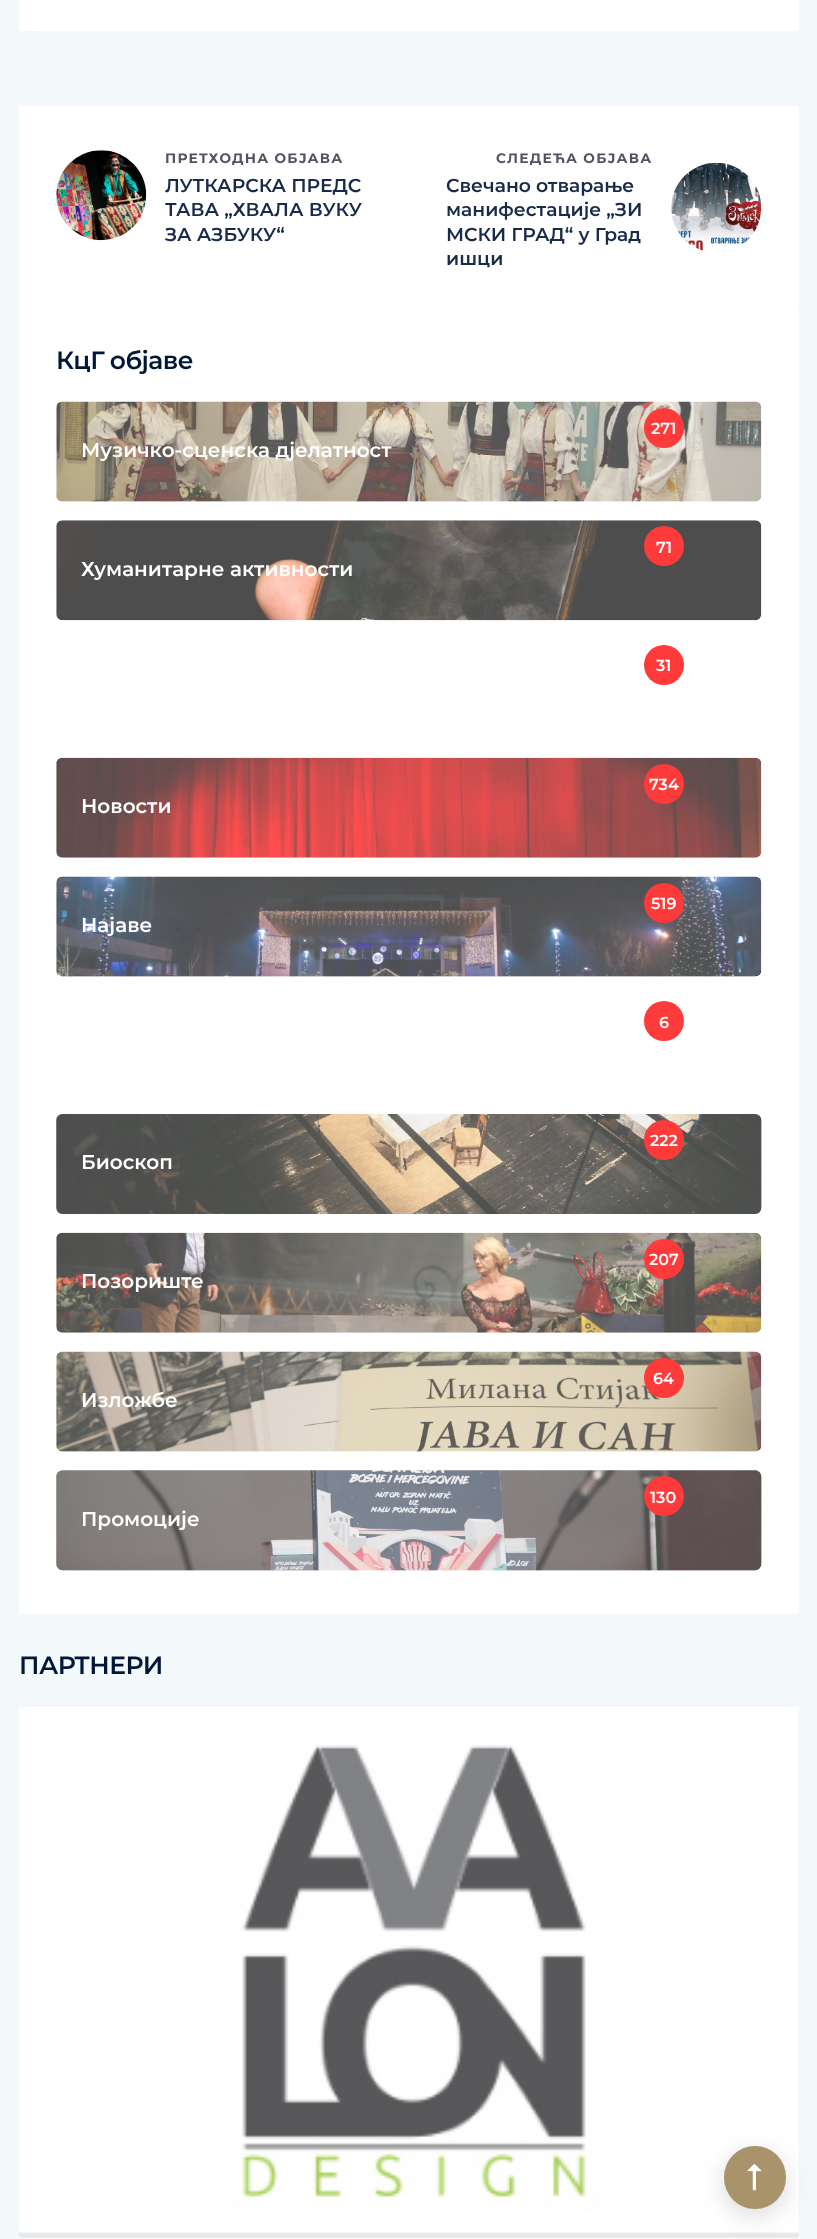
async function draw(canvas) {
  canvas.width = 817
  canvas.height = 2239
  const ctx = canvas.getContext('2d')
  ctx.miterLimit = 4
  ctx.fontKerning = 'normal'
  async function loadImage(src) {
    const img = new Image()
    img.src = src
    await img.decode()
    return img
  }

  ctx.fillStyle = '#f3f8fb'
  ctx.fillRect(0, 0, 817, 2239)
  ctx.fillStyle = '#fff'
  ctx.fillRect(19, 0, 780, 31)
  ctx.fillRect(19, 106, 780, 203)
  ctx.drawImage(await loadImage('image0.png'), 56, 150, 91, 91)
  ctx.letterSpacing = '1.25px'
  ctx.font = 'bold 13.75px Montserrat'
  ctx.fillStyle = '#574f63'
  ctx.fillText('ПРЕТХОДНА ОБЈАВА', 165, 163)
  ctx.letterSpacing = '0px'
  ctx.font = '600 18.75px Montserrat'
  ctx.fillStyle = '#182b49'
  ctx.fillText('ЛУТКАРСКА ПРЕДС', 165, 192)
  ctx.fillText('ТАВА „ХВАЛА ВУКУ', 165, 216)
  ctx.fillText('ЗА АЗБУКУ“', 165, 241)
  ctx.letterSpacing = '1.25px'
  ctx.font = 'bold 13.75px Montserrat'
  ctx.fillStyle = '#574f63'
  ctx.fillText('СЛЕДЕЋА ОБЈАВА', 496, 163)
  ctx.letterSpacing = '0px'
  ctx.font = '600 18.75px Montserrat'
  ctx.fillStyle = '#182b49'
  ctx.fillText('Свечано отварање', 446, 192)
  ctx.fillText('манифестације „ЗИ', 446, 216)
  ctx.fillText('МСКИ ГРАД“ у Град', 446, 241)
  ctx.fillText('ишци', 446, 265)
  ctx.drawImage(await loadImage('image1.png'), 671, 162, 91, 90)
  ctx.fillStyle = '#fff'
  ctx.beginPath()
  ctx.roundRect(19, 309, 780, 1305, 4)
  ctx.fill()
  ctx.letterSpacing = '-0.5px'
  ctx.wordSpacing = '-1px'
  ctx.font = '600 25px Montserrat'
  ctx.fillStyle = '#001737'
  ctx.fillText('КцГ објаве', 56, 369)
  ctx.drawImage(await loadImage('image2.png'), 56, 401, 706, 101)
  ctx.letterSpacing = '0px'
  ctx.wordSpacing = '0px'
  ctx.font = '600 20px Montserrat'
  ctx.fillStyle = '#fff'
  ctx.fillText('Музичко-сценска дјелатност', 81, 457)
  ctx.fillStyle = '#ffffff4d'
  ctx.beginPath()
  ctx.roundRect(56, 401, 705, 100, 6)
  ctx.fill()
  ctx.fillStyle = '#ff3a3a'
  ctx.beginPath()
  ctx.arc(664, 428, 20, 0, 2 * Math.PI)
  ctx.fill()
  ctx.font = '600 16px Montserrat'
  ctx.fillStyle = '#fff'
  ctx.fillText('271', 651, 434)
  ctx.drawImage(await loadImage('image3.png'), 56, 520, 706, 101)
  ctx.font = '600 20px Montserrat'
  ctx.fillText('Хуманитарне активности', 81, 576)
  ctx.fillStyle = '#ffffff4d'
  ctx.beginPath()
  ctx.roundRect(56, 520, 705, 100, 6)
  ctx.fill()
  ctx.fillStyle = '#ff3a3a'
  ctx.beginPath()
  ctx.arc(664, 546, 20, 0, 2 * Math.PI)
  ctx.fill()
  ctx.font = '600 16px Montserrat'
  ctx.fillStyle = '#fff'
  ctx.fillText('71', 656, 553)
  ctx.fillStyle = '#ff3a3a'
  ctx.beginPath()
  ctx.arc(664, 665, 20, 0, 2 * Math.PI)
  ctx.fill()
  ctx.fillStyle = '#fff'
  ctx.fillText('31', 656, 671)
  ctx.drawImage(await loadImage('image4.png'), 56, 757, 706, 101)
  ctx.font = '600 20px Montserrat'
  ctx.fillText('Новости', 81, 813)
  ctx.fillStyle = '#ffffff4d'
  ctx.beginPath()
  ctx.roundRect(56, 758, 705, 100, 6)
  ctx.fill()
  ctx.fillStyle = '#ff3a3a'
  ctx.beginPath()
  ctx.arc(664, 784, 20, 0, 2 * Math.PI)
  ctx.fill()
  ctx.font = '600 16px Montserrat'
  ctx.fillStyle = '#fff'
  ctx.fillText('734', 649, 790)
  ctx.drawImage(await loadImage('image5.png'), 56, 876, 706, 101)
  ctx.font = '600 20px Montserrat'
  ctx.fillText('Најаве', 81, 932)
  ctx.fillStyle = '#ffffff4d'
  ctx.beginPath()
  ctx.roundRect(56, 876, 705, 100, 6)
  ctx.fill()
  ctx.fillStyle = '#ff3a3a'
  ctx.beginPath()
  ctx.arc(664, 903, 20, 0, 2 * Math.PI)
  ctx.fill()
  ctx.font = '600 16px Montserrat'
  ctx.fillStyle = '#fff'
  ctx.fillText('519', 651, 909)
  ctx.fillStyle = '#ff3a3a'
  ctx.beginPath()
  ctx.arc(664, 1021, 20, 0, 2 * Math.PI)
  ctx.fill()
  ctx.fillStyle = '#fff'
  ctx.fillText('6', 659, 1028)
  ctx.drawImage(await loadImage('image6.png'), 56, 1114, 706, 100)
  ctx.font = '600 20px Montserrat'
  ctx.fillText('Биоскоп', 81, 1169)
  ctx.fillStyle = '#ffffff4d'
  ctx.beginPath()
  ctx.roundRect(56, 1114, 705, 100, 6)
  ctx.fill()
  ctx.fillStyle = '#ff3a3a'
  ctx.beginPath()
  ctx.arc(664, 1140, 20, 0, 2 * Math.PI)
  ctx.fill()
  ctx.font = '600 16px Montserrat'
  ctx.fillStyle = '#fff'
  ctx.fillText('222', 650, 1146)
  ctx.drawImage(await loadImage('image7.png'), 56, 1232, 706, 101)
  ctx.font = '600 20px Montserrat'
  ctx.fillText('Позориште', 81, 1288)
  ctx.fillStyle = '#ffffff4d'
  ctx.beginPath()
  ctx.roundRect(56, 1233, 705, 100, 6)
  ctx.fill()
  ctx.fillStyle = '#ff3a3a'
  ctx.beginPath()
  ctx.arc(664, 1259, 20, 0, 2 * Math.PI)
  ctx.fill()
  ctx.font = '600 16px Montserrat'
  ctx.fillStyle = '#fff'
  ctx.fillText('207', 649, 1265)
  ctx.drawImage(await loadImage('image8.png'), 56, 1351, 706, 101)
  ctx.font = '600 20px Montserrat'
  ctx.fillText('Изложбе', 81, 1407)
  ctx.fillStyle = '#ffffff4d'
  ctx.beginPath()
  ctx.roundRect(56, 1351, 705, 100, 6)
  ctx.fill()
  ctx.fillStyle = '#ff3a3a'
  ctx.beginPath()
  ctx.arc(664, 1378, 20, 0, 2 * Math.PI)
  ctx.fill()
  ctx.font = '600 16px Montserrat'
  ctx.fillStyle = '#fff'
  ctx.fillText('64', 653, 1384)
  ctx.drawImage(await loadImage('image9.png'), 56, 1470, 706, 101)
  ctx.font = '600 20px Montserrat'
  ctx.fillText('Промоције', 81, 1526)
  ctx.fillStyle = '#ffffff4d'
  ctx.beginPath()
  ctx.roundRect(56, 1470, 705, 100, 6)
  ctx.fill()
  ctx.fillStyle = '#ff3a3a'
  ctx.beginPath()
  ctx.arc(664, 1496, 20, 0, 2 * Math.PI)
  ctx.fill()
  ctx.font = '600 16px Montserrat'
  ctx.fillStyle = '#fff'
  ctx.fillText('130', 650, 1503)
  ctx.letterSpacing = '-0.5px'
  ctx.font = '600 25px Montserrat'
  ctx.fillStyle = '#001737'
  ctx.fillText('ПАРТНЕРИ', 19, 1674)
  ctx.drawImage(await loadImage('image10.png'), 19, 1707, 780, 531)
  ctx.fillStyle = '#00000026'
  ctx.filter = 'blur(12.5px)'
  ctx.beginPath()
  ctx.roundRect(724, 2153, 62, 62, 31)
  ctx.fill()
  ctx.filter = 'none'
  ctx.fillStyle = '#a9936b'
  ctx.beginPath()
  ctx.roundRect(724, 2146, 62, 63, 31)
  ctx.fill()
  ctx.drawImage(await loadImage('image11.png'), 747, 2164, 15, 27)
}

draw(document.querySelector('canvas'))
